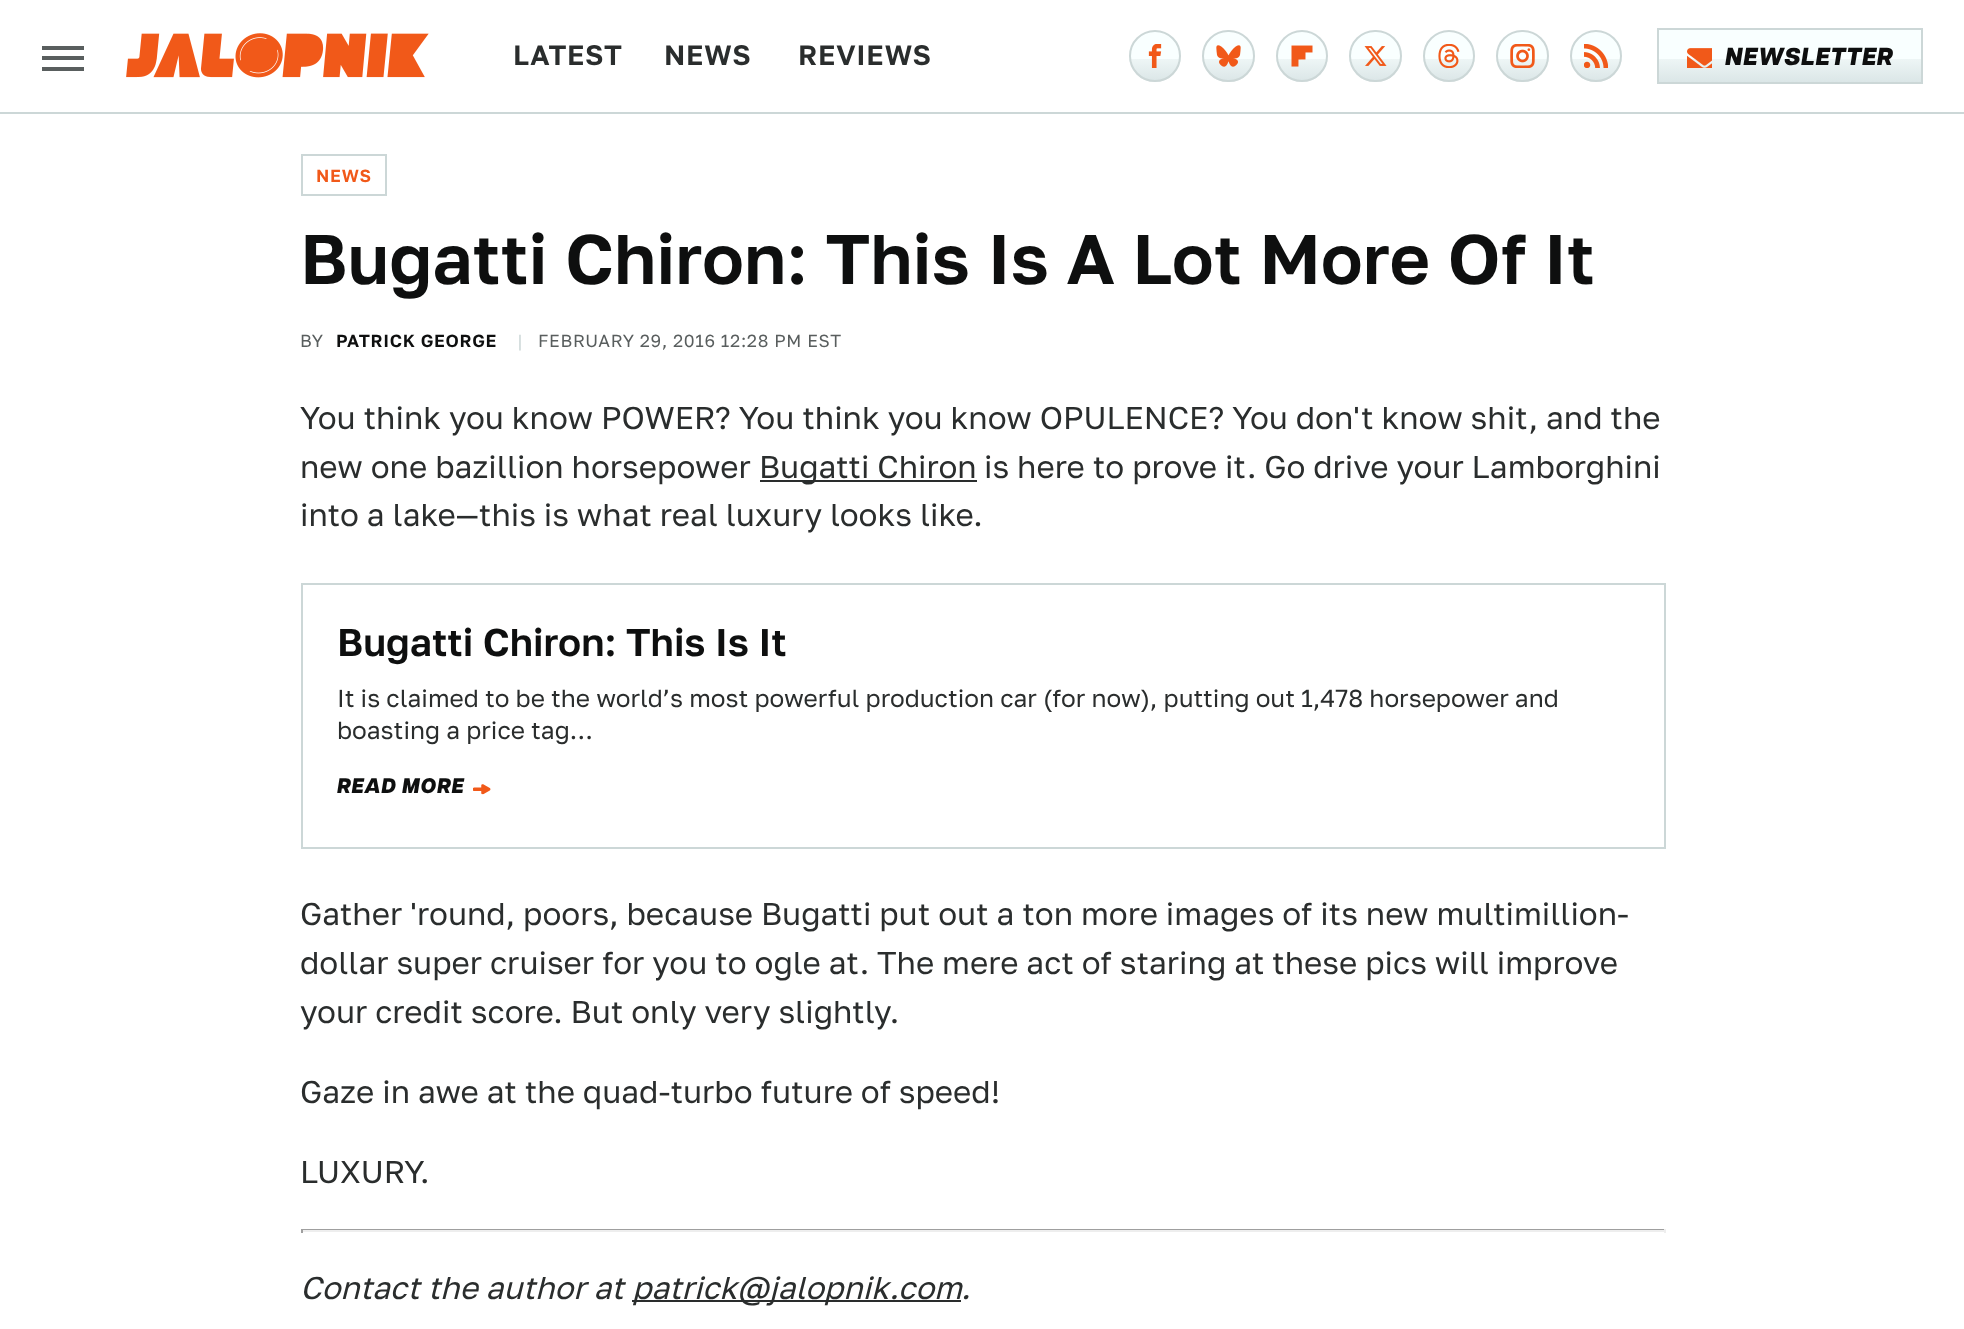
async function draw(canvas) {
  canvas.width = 1964
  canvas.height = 1329
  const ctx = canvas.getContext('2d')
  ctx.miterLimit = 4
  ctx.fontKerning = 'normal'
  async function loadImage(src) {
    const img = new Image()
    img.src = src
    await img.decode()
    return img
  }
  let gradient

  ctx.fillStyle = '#fff'
  ctx.fillRect(0, 0, 1964, 1329)
  ctx.fillStyle = '#ccd7d7'
  ctx.fillRect(0, 112, 1964, 2)
  ctx.fillStyle = '#595e5e'
  ctx.fillRect(42, 46, 42, 4)
  ctx.fillRect(42, 56, 42, 4)
  ctx.fillRect(42, 67, 42, 4)
  ctx.drawImage(await loadImage('image0.png'), 126, 33, 303, 45)
  ctx.letterSpacing = '0.7px'
  ctx.font = '600 28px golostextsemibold'
  ctx.fillStyle = '#2a2d2d'
  ctx.fillText('LATEST', 513, 65)
  ctx.fillText('NEWS', 664, 65)
  ctx.fillText('REVIEWS', 798, 65)
  ctx.save()
  ctx.beginPath()
  ctx.roundRect(1129, 30, 52, 52, 26)
  ctx.clip()
  gradient = ctx.createLinearGradient(1155, 32, 1155, 81)
  gradient.addColorStop(0.55, '#f9ffff')
  gradient.addColorStop(0.55, '#eef6f6')
  gradient.addColorStop(1, '#dbe6e7')
  ctx.fillStyle = gradient
  ctx.fillRect(1129, 32, 52, 49)
  ctx.restore()
  ctx.beginPath()
  ctx.arc(1155, 56, 25, 0, 2 * Math.PI)
  ctx.strokeStyle = '#ccd7d7'
  ctx.lineWidth = 2
  ctx.stroke()
  ctx.drawImage(await loadImage('image1.png'), 1148, 44, 14, 24)
  ctx.save()
  ctx.beginPath()
  ctx.roundRect(1202, 30, 53, 52, 26)
  ctx.clip()
  gradient = ctx.createLinearGradient(1229, 32, 1229, 81)
  gradient.addColorStop(0.55, '#f9ffff')
  gradient.addColorStop(0.55, '#eef6f6')
  gradient.addColorStop(1, '#dbe6e7')
  ctx.fillStyle = gradient
  ctx.fillRect(1202, 32, 53, 49)
  ctx.restore()
  ctx.beginPath()
  ctx.roundRect(1203, 31, 51, 50, 25)
  ctx.stroke()
  ctx.drawImage(await loadImage('image2.png'), 1216, 45, 25, 22)
  ctx.save()
  ctx.beginPath()
  ctx.roundRect(1276, 30, 52, 52, 26)
  ctx.clip()
  gradient = ctx.createLinearGradient(1302, 32, 1302, 81)
  gradient.addColorStop(0.55, '#f9ffff')
  gradient.addColorStop(0.55, '#eef6f6')
  gradient.addColorStop(1, '#dbe6e7')
  ctx.fillStyle = gradient
  ctx.fillRect(1276, 32, 52, 49)
  ctx.restore()
  ctx.beginPath()
  ctx.arc(1302, 56, 25, 0, 2 * Math.PI)
  ctx.stroke()
  ctx.drawImage(await loadImage('image3.png'), 1291, 45, 22, 22)
  ctx.save()
  ctx.beginPath()
  ctx.roundRect(1349, 30, 53, 52, 26)
  ctx.clip()
  gradient = ctx.createLinearGradient(1376, 32, 1376, 81)
  gradient.addColorStop(0.55, '#f9ffff')
  gradient.addColorStop(0.55, '#eef6f6')
  gradient.addColorStop(1, '#dbe6e7')
  ctx.fillStyle = gradient
  ctx.fillRect(1349, 32, 53, 49)
  ctx.restore()
  ctx.beginPath()
  ctx.roundRect(1350, 31, 51, 50, 25)
  ctx.stroke()
  ctx.drawImage(await loadImage('image4.png'), 1364, 46, 23, 20)
  ctx.save()
  ctx.beginPath()
  ctx.roundRect(1423, 30, 52, 52, 26)
  ctx.clip()
  gradient = ctx.createLinearGradient(1449, 32, 1449, 81)
  gradient.addColorStop(0.55, '#f9ffff')
  gradient.addColorStop(0.55, '#eef6f6')
  gradient.addColorStop(1, '#dbe6e7')
  ctx.fillStyle = gradient
  ctx.fillRect(1423, 32, 52, 49)
  ctx.restore()
  ctx.beginPath()
  ctx.arc(1449, 56, 25, 0, 2 * Math.PI)
  ctx.stroke()
  ctx.drawImage(await loadImage('image5.png'), 1438, 44, 22, 24)
  ctx.save()
  ctx.beginPath()
  ctx.roundRect(1496, 30, 53, 52, 26)
  ctx.clip()
  gradient = ctx.createLinearGradient(1523, 32, 1523, 81)
  gradient.addColorStop(0.55, '#f9ffff')
  gradient.addColorStop(0.55, '#eef6f6')
  gradient.addColorStop(1, '#dbe6e7')
  ctx.fillStyle = gradient
  ctx.fillRect(1496, 32, 53, 49)
  ctx.restore()
  ctx.beginPath()
  ctx.roundRect(1497, 31, 51, 50, 25)
  ctx.stroke()
  ctx.drawImage(await loadImage('image6.png'), 1510, 44, 25, 24)
  ctx.save()
  ctx.beginPath()
  ctx.roundRect(1570, 30, 52, 52, 26)
  ctx.clip()
  gradient = ctx.createLinearGradient(1596, 32, 1596, 81)
  gradient.addColorStop(0.55, '#f9ffff')
  gradient.addColorStop(0.55, '#eef6f6')
  gradient.addColorStop(1, '#dbe6e7')
  ctx.fillStyle = gradient
  ctx.fillRect(1570, 32, 52, 49)
  ctx.restore()
  ctx.beginPath()
  ctx.arc(1596, 56, 25, 0, 2 * Math.PI)
  ctx.stroke()
  ctx.drawImage(await loadImage('image7.png'), 1584, 44, 24, 24)
  gradient = ctx.createLinearGradient(1790, 30, 1790, 82)
  gradient.addColorStop(0.55, '#f9ffff')
  gradient.addColorStop(0.55, '#eef6f6')
  gradient.addColorStop(1, '#dbe6e7')
  ctx.fillStyle = gradient
  ctx.fillRect(1659, 30, 262, 52)
  ctx.strokeRect(1658, 29, 264, 54)
  ctx.drawImage(await loadImage('image8.png'), 1687, 48, 25, 20)
  ctx.font = 'italic 900 24.5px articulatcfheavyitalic'
  ctx.fillStyle = '#0e0f0f'
  ctx.fillText('NEWSLETTER', 1725, 65)
  ctx.strokeRect(302, 155, 84, 40)
  ctx.font = '600 17.5px golostextsemibold'
  ctx.fillStyle = '#f15919'
  ctx.fillText('NEWS', 316, 182)
  ctx.letterSpacing = '0px'
  ctx.font = '600 70px golostextsemibold'
  ctx.fillStyle = '#0e0f0f'
  ctx.fillText('Bugatti Chiron: This Is A Lot More Of It', 300, 284)
  ctx.letterSpacing = '0.7px'
  ctx.font = '17.5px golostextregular'
  ctx.fillStyle = '#595e5e'
  ctx.fillText('BY', 300, 347)
  ctx.font = '600 17.5px golostextsemibold'
  ctx.fillStyle = '#0e0f0f'
  ctx.fillText('PATRICK GEORGE', 336, 347)
  ctx.font = '17.5px golostextregular'
  ctx.fillStyle = '#ccd7d7'
  ctx.fillText('|', 517, 347)
  ctx.fillStyle = '#595e5e'
  ctx.fillText('FEBRUARY 29, 2016 12:28 PM EST', 538, 347)
  ctx.letterSpacing = '0px'
  ctx.font = '31.5px golostextregular'
  ctx.fillStyle = '#2a2d2d'
  ctx.fillText('You think you know POWER? You think you know OPULENCE? You don\'t know shit, and the', 300, 429)
  ctx.fillText('new one bazillion horsepower', 300, 478)
  ctx.fillRect(760, 480, 217, 2)
  ctx.fillText('Bugatti Chiron', 759, 478)
  ctx.fillText('is here to prove it. Go drive your Lamborghini', 984, 478)
  ctx.fillText('into a lake—this is what real luxury looks like.', 300, 526)
  ctx.strokeRect(302, 584, 1363, 264)
  ctx.font = '600 38.5px golostextsemibold'
  ctx.fillStyle = '#0e0f0f'
  ctx.fillText('Bugatti Chiron: This Is It', 337, 656)
  ctx.font = '24.5px golostextregular'
  ctx.fillStyle = '#2a2d2d'
  ctx.fillText('It is claimed to be the world’s most powerful production car (for now), putting out 1,478 horsepower and', 337, 707)
  ctx.fillText('boasting a price tag…', 337, 739)
  ctx.letterSpacing = '0.7px'
  ctx.font = 'italic 900 21px articulatcfheavyitalic'
  ctx.fillStyle = '#0e0f0f'
  ctx.fillText('READ MORE', 337, 793)
  ctx.drawImage(await loadImage('image9.png'), 473, 784, 18, 11)
  ctx.letterSpacing = '0px'
  ctx.font = '31.5px golostextregular'
  ctx.fillStyle = '#2a2d2d'
  ctx.fillText('Gather \'round, poors, because Bugatti put out a ton more images of its new multimillion-', 300, 925)
  ctx.fillText('dollar super cruiser for you to ogle at. The mere act of staring at these pics will improve', 300, 974)
  ctx.fillText('your credit score. But only very slightly.', 300, 1023)
  ctx.fillText('Gaze in awe at the quad-turbo future of speed!', 300, 1103)
  ctx.fillText('LUXURY.', 300, 1183)
  ctx.fillStyle = '#9f9f9f'
  ctx.fillRect(301, 1229, 1365, 1)
  ctx.fillStyle = '#eee'
  ctx.fillRect(1664, 1229, 2, 4)
  ctx.fillRect(301, 1230, 1365, 2)
  ctx.fillStyle = '#9f9f9f'
  ctx.fillRect(301, 1229, 2, 4)
  ctx.font = 'italic 31.5px golostextregular'
  ctx.fillStyle = '#2a2d2d'
  ctx.fillText('Contact the author at', 300, 1299)
  ctx.fillRect(632, 1300, 329, 2)
  ctx.fillText('patrick@jalopnik.com', 632, 1299)
  ctx.fillText('.', 961, 1299)
}

draw(document.querySelector('canvas'))
